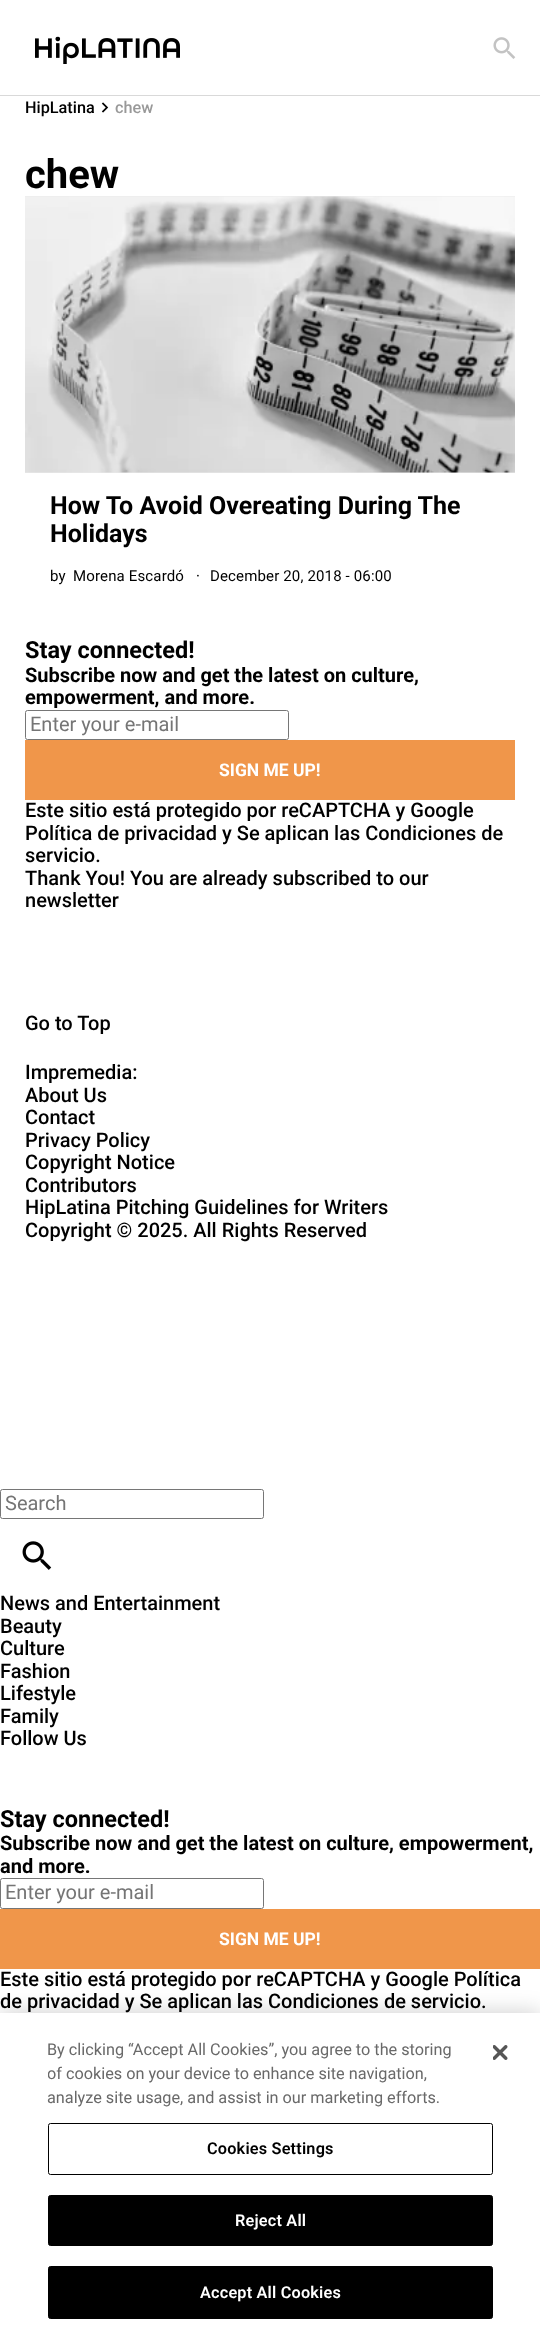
async function draw(canvas) {
  canvas.width = 540
  canvas.height = 2338
  const ctx = canvas.getContext('2d')
  ctx.miterLimit = 4
  ctx.fontKerning = 'normal'
  async function loadImage(src) {
    const img = new Image()
    img.src = src
    await img.decode()
    return img
  }

  ctx.fillStyle = '#fff'
  ctx.fillRect(0, 0, 540, 2338)
  ctx.fillStyle = '#d9d9d9'
  ctx.fillRect(0, 95, 540, 1)
  ctx.drawImage(await loadImage('image0.png'), 35, 36, 145, 28)
  ctx.drawImage(await loadImage('image1.png'), 493, 37, 23, 22)
  ctx.font = '500 16.25px Roboto'
  ctx.fillStyle = '#000'
  ctx.fillText('HipLatina', 25, 113)
  ctx.drawImage(await loadImage('image2.png'), 101, 102, 8, 11)
  ctx.fillStyle = '#999'
  ctx.fillText('chew', 115, 113)
  ctx.font = 'bold 40px Roboto'
  ctx.fillStyle = '#000'
  ctx.fillText('chew', 25, 188)
  ctx.fillStyle = '#eaeaea'
  ctx.fillRect(25, 196, 490, 277)
  ctx.drawImage(await loadImage('image3.png'), 25, 196, 490, 277)
  ctx.font = 'bold 25px Roboto'
  ctx.fillStyle = '#000'
  ctx.fillText('How To Avoid Overeating During The', 50, 514)
  ctx.fillText('Holidays', 50, 542)
  ctx.letterSpacing = '0.15px'
  ctx.font = '15px Roboto'
  ctx.fillText('by', 50, 581)
  ctx.fillText('Morena Escardó', 73, 581)
  ctx.fillText('·', 196, 581)
  ctx.fillText('December 20, 2018 - 06:00', 210, 581)
  ctx.letterSpacing = '0px'
  ctx.font = 'bold 23.5px Roboto'
  ctx.fillText('Stay connected!', 25, 658)
  ctx.font = 'bold 20px Roboto'
  ctx.fillText('Subscribe now and get the latest on culture,', 25, 682)
  ctx.fillText('empowerment, and more.', 25, 704)
  ctx.beginPath()
  ctx.roundRect(25.5, 710.5, 263, 29, 2)
  ctx.strokeStyle = '#767676'
  ctx.stroke()
  ctx.font = '20px Roboto'
  ctx.fillStyle = '#757575'
  ctx.fillText('Enter your e-mail', 30, 731)
  ctx.fillStyle = '#f0964a'
  ctx.fillRect(25, 740, 490, 60)
  ctx.font = 'bold 17.5px Roboto'
  ctx.fillStyle = '#fff'
  ctx.fillText('SIGN ME UP!', 219, 776)
  ctx.font = '500 20px Roboto'
  ctx.fillStyle = '#000'
  ctx.fillText('Este sitio está protegido por reCAPTCHA y Google', 25, 817)
  ctx.fillText('Política de privacidad y Se aplican las Condiciones de', 25, 840)
  ctx.fillText('servicio.', 25, 862)
  ctx.fillText('Thank You! You are already subscribed to our', 25, 885)
  ctx.fillText('newsletter', 25, 907)
  ctx.fillText('Go to Top', 25, 1030)
  ctx.fillText('Impremedia:', 25, 1079)
  ctx.fillText('About Us', 25, 1102)
  ctx.fillText('Contact', 25, 1124)
  ctx.fillText('Privacy Policy', 25, 1147)
  ctx.fillText('Copyright Notice', 25, 1169)
  ctx.fillText('Contributors', 25, 1192)
  ctx.fillText('HipLatina Pitching Guidelines for Writers', 25, 1214)
  ctx.fillText('Copyright © 2025. All Rights Reserved', 25, 1237)
  ctx.beginPath()
  ctx.roundRect(0.5, 1489.5, 263, 29, 2)
  ctx.stroke()
  ctx.font = '20px Roboto'
  ctx.fillStyle = '#757575'
  ctx.fillText('Search', 5, 1510)
  ctx.drawImage(await loadImage('image4.png'), 22, 1541, 30, 29)
  ctx.font = '500 20px Roboto'
  ctx.fillStyle = '#000'
  ctx.fillText('News and Entertainment', 0, 1610)
  ctx.fillText('Beauty', 0, 1633)
  ctx.fillText('Culture', 0, 1655)
  ctx.fillText('Fashion', 0, 1678)
  ctx.fillText('Lifestyle', 0, 1700)
  ctx.fillText('Family', 0, 1723)
  ctx.fillText('Follow Us', 0, 1745)
  ctx.font = 'bold 23.5px Roboto'
  ctx.fillText('Stay connected!', 0, 1827)
  ctx.font = 'bold 20px Roboto'
  ctx.fillText('Subscribe now and get the latest on culture, empowerment,', 0, 1850)
  ctx.fillText('and more.', 0, 1873)
  ctx.beginPath()
  ctx.roundRect(0.5, 1878.5, 263, 30, 2)
  ctx.stroke()
  ctx.font = '20px Roboto'
  ctx.fillStyle = '#757575'
  ctx.fillText('Enter your e-mail', 5, 1899)
  ctx.fillStyle = '#f0964a'
  ctx.fillRect(0, 1909, 540, 60)
  ctx.font = 'bold 17.5px Roboto'
  ctx.fillStyle = '#fff'
  ctx.fillText('SIGN ME UP!', 219, 1945)
  ctx.font = '500 20px Roboto'
  ctx.fillStyle = '#000'
  ctx.fillText('Este sitio está protegido por reCAPTCHA y Google Política', 0, 1986)
  ctx.fillText('de privacidad y Se aplican las Condiciones de servicio.', 0, 2008)
  ctx.fillStyle = '#00000033'
  ctx.filter = 'blur(11px)'
  ctx.beginPath()
  ctx.rect(0, 2013, 540, 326)
  ctx.fill()
  ctx.filter = 'none'
  ctx.fillStyle = '#fff'
  ctx.fillRect(0, 2013, 540, 325)
  ctx.font = '16.25px Roboto'
  ctx.fillStyle = '#696969'
  ctx.fillText('By clicking “Accept All Cookies”, you agree to the storing', 47, 2055)
  ctx.save()
  ctx.beginPath()
  ctx.rect(48, 2038, 421, 72)
  ctx.clip()
  ctx.fillText('of cookies on your device to enhance site navigation,', 47, 2079)
  ctx.restore()
  ctx.fillText('analyze site usage, and assist in our marketing efforts.', 47, 2103)
  ctx.beginPath()
  ctx.roundRect(48.5, 2123.5, 444, 51, 2)
  ctx.strokeStyle = '#000'
  ctx.stroke()
  ctx.letterSpacing = '0.2px'
  ctx.font = '600 16.25px Roboto'
  ctx.fillStyle = '#000'
  ctx.fillText('Cookies Settings', 207, 2154)
  ctx.beginPath()
  ctx.roundRect(48.5, 2195.5, 444, 50, 2)
  ctx.fill()
  ctx.stroke()
  ctx.fillStyle = '#fff'
  ctx.fillText('Reject All', 235, 2226)
  ctx.fillStyle = '#000'
  ctx.beginPath()
  ctx.roundRect(48.5, 2266.5, 444, 52, 2)
  ctx.fill()
  ctx.stroke()
  ctx.fillStyle = '#fff'
  ctx.fillText('Accept All Cookies', 200, 2298)
  ctx.drawImage(await loadImage('image5.png'), 493, 2045, 15, 15)
}

draw(document.querySelector('canvas'))
